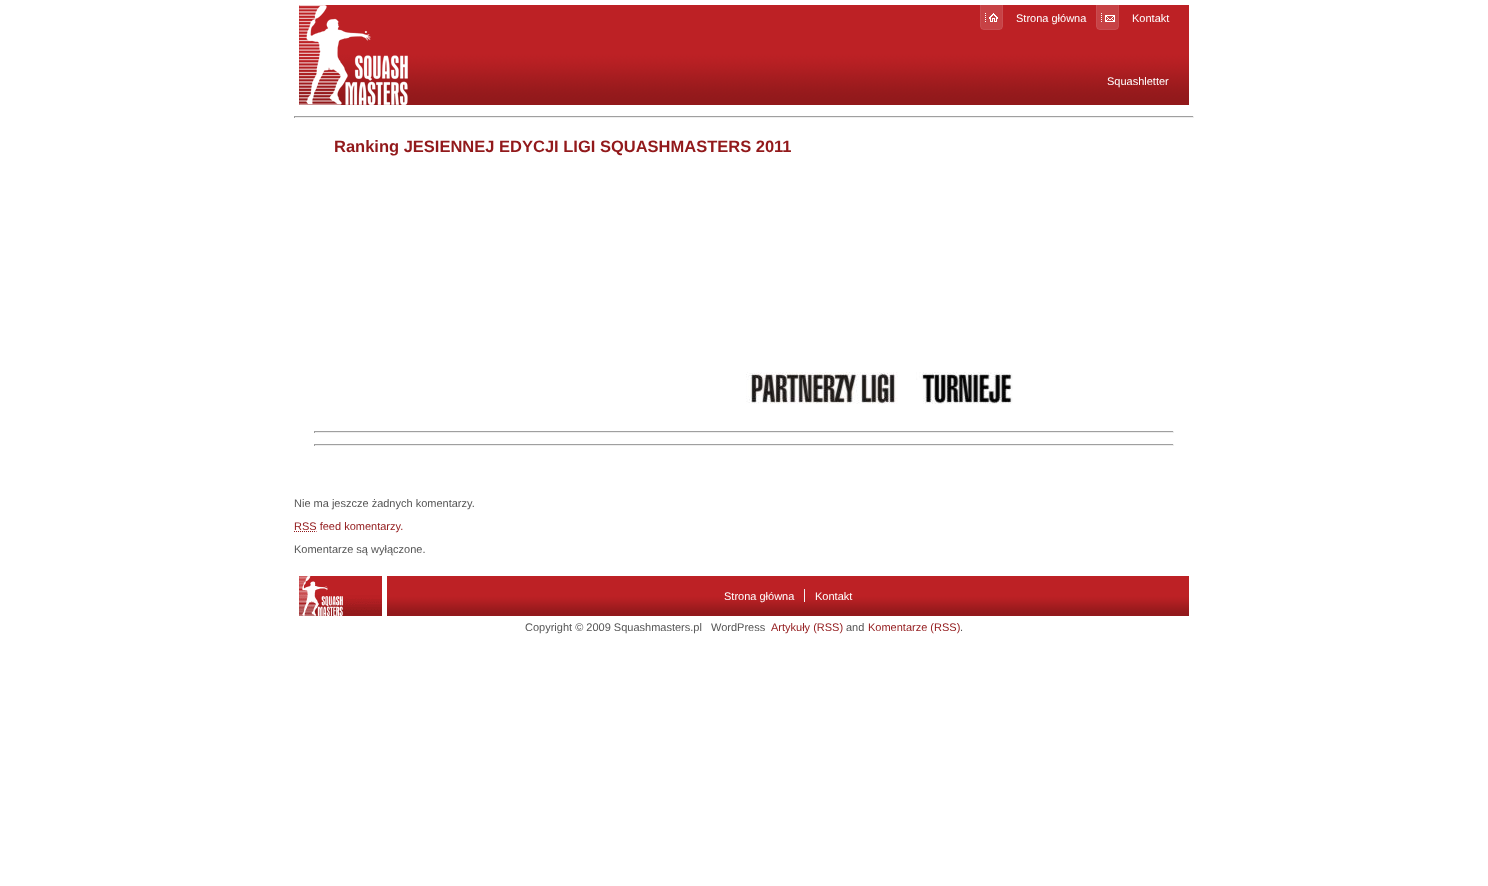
async function draw(canvas) {
  canvas.width = 1488
  canvas.height = 886
  const ctx = canvas.getContext('2d')
  ctx.miterLimit = 4
  ctx.fontKerning = 'normal'
  async function loadImage(src) {
    const img = new Image()
    img.src = src
    await img.decode()
    return img
  }

  ctx.fillStyle = '#fff'
  ctx.fillRect(0, 0, 1488, 886)
  ctx.drawImage(await loadImage('image0.png'), 408, 5, 781, 100)
  ctx.drawImage(await loadImage('image1.png'), 299, 5, 109, 100)
  ctx.drawImage(await loadImage('image2.png'), 980, 5, 23, 25)
  ctx.font = '11px Liberation Sans'
  ctx.fillText('Strona główna', 1016, 22)
  ctx.drawImage(await loadImage('image3.png'), 1096, 5, 23, 25)
  ctx.fillText('Kontakt', 1132, 22)
  ctx.fillText('Squashletter', 1107, 85)
  ctx.fillStyle = '#9f9f9f'
  ctx.fillRect(294, 116, 900, 1)
  ctx.fillStyle = '#eee'
  ctx.fillRect(1193, 116, 1, 2)
  ctx.fillRect(294, 117, 900, 1)
  ctx.fillStyle = '#9f9f9f'
  ctx.fillRect(294, 116, 1, 2)
  ctx.font = 'bold 16.5px Liberation Sans'
  ctx.fillStyle = '#92191b'
  ctx.fillText('Ranking JESIENNEJ EDYCJI LIGI SQUASHMASTERS 2011', 334, 152)
  ctx.drawImage(await loadImage('image4.png'), 746, 372, 152, 32)
  ctx.drawImage(await loadImage('image5.png'), 916, 372, 97, 32)
  ctx.fillStyle = '#9f9f9f'
  ctx.fillRect(314, 431, 860, 1)
  ctx.fillStyle = '#eee'
  ctx.fillRect(1173, 431, 1, 2)
  ctx.fillRect(314, 432, 860, 1)
  ctx.fillStyle = '#9f9f9f'
  ctx.fillRect(314, 431, 1, 2)
  ctx.fillRect(314, 444, 860, 1)
  ctx.fillStyle = '#eee'
  ctx.fillRect(1173, 444, 1, 2)
  ctx.fillRect(314, 445, 860, 1)
  ctx.fillStyle = '#9f9f9f'
  ctx.fillRect(314, 444, 1, 2)
  ctx.font = '11px Liberation Sans'
  ctx.fillStyle = '#555'
  ctx.fillText('Nie ma jeszcze żadnych komentarzy.', 294, 507)
  ctx.beginPath()
  ctx.moveTo(294, 531.5)
  ctx.lineTo(316.5, 531.5)
  ctx.strokeStyle = '#92191b'
  ctx.setLineDash([1, 1])
  ctx.stroke()
  ctx.fillStyle = '#92191b'
  ctx.fillText('RSS feed komentarzy.', 294, 530)
  ctx.fillStyle = '#555'
  ctx.fillText('Komentarze są wyłączone.', 294, 553)
  ctx.drawImage(await loadImage('image6.png'), 299, 576, 83, 40)
  ctx.drawImage(await loadImage('image7.png'), 387, 576, 802, 40)
  ctx.fillStyle = '#fff'
  ctx.fillText('Strona główna', 724, 600)
  ctx.drawImage(await loadImage('image8.png'), 804, 589, 1, 13)
  ctx.fillText('Kontakt', 815, 600)
  ctx.fillStyle = '#555'
  ctx.fillText('Copyright © 2009 Squashmasters.pl   WordPress', 525, 631)
  ctx.fillStyle = '#92191b'
  ctx.fillText('Artykuły (RSS)', 771, 631)
  ctx.fillStyle = '#555'
  ctx.fillText('and', 846, 631)
  ctx.fillStyle = '#92191b'
  ctx.fillText('Komentarze (RSS)', 868, 631)
  ctx.fillStyle = '#555'
  ctx.fillText('.', 960, 631)
}

draw(document.querySelector('canvas'))
